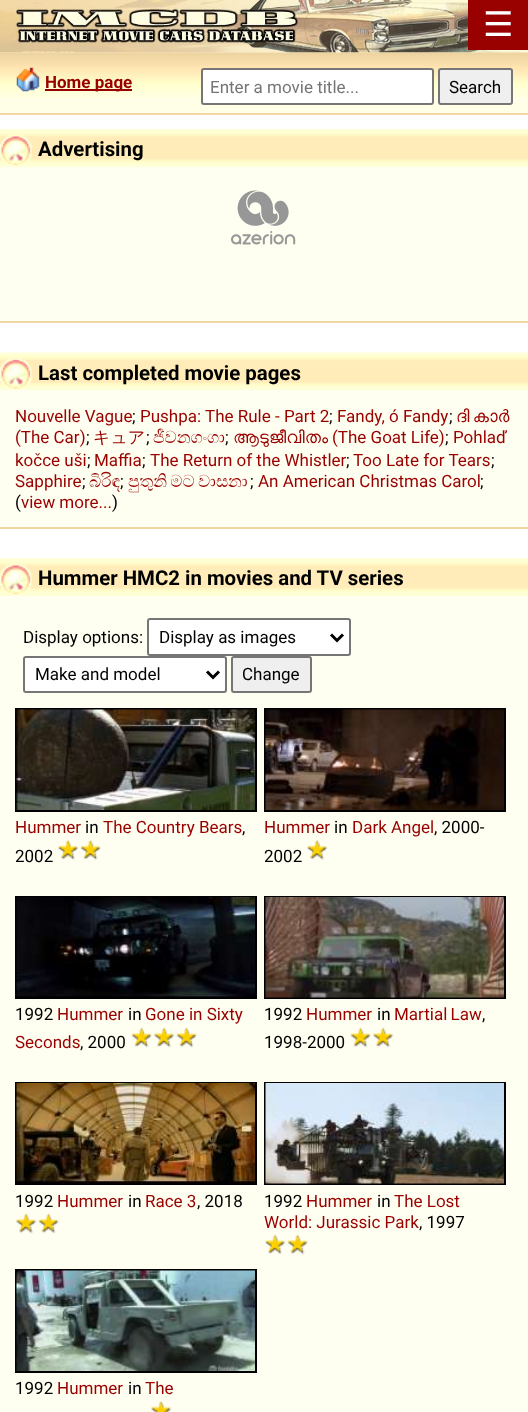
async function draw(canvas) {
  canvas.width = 528
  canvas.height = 1412
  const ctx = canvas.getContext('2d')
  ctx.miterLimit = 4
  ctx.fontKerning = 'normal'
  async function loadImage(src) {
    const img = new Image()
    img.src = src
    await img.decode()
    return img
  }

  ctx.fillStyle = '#fff'
  ctx.fillRect(0, 0, 528, 1412)
  ctx.fillStyle = '#fef9d9'
  ctx.fillRect(0, 50, 528, 3)
  ctx.drawImage(await loadImage('image0.png'), 0, 0, 521, 53)
  ctx.fillStyle = '#900'
  ctx.fillRect(468, 0, 60, 50)
  ctx.font = '34px DejaVu Sans'
  ctx.fillStyle = '#fff'
  ctx.fillText('☰', 483, 36)
  ctx.fillStyle = '#ffffe7'
  ctx.fillRect(0, 98, 528, 15)
  ctx.drawImage(await loadImage('image1.png'), 0, 52, 528, 46)
  ctx.fillStyle = '#efd6a3'
  ctx.fillRect(0, 113, 528, 2)
  ctx.drawImage(await loadImage('image2.png'), 16, 67, 24, 25)
  ctx.fillStyle = '#900'
  ctx.fillRect(45, 89, 87, 2)
  ctx.font = 'bold 17px Roboto'
  ctx.fillText('Home page', 45, 88)
  ctx.fillStyle = '#fff'
  ctx.beginPath()
  ctx.roundRect(202, 69, 231, 35, 2)
  ctx.fill()
  ctx.strokeStyle = '#767676'
  ctx.lineWidth = 2
  ctx.stroke()
  ctx.font = '17px Roboto'
  ctx.fillStyle = '#757575'
  ctx.fillText('Enter a movie title...', 210, 93)
  ctx.fillStyle = '#efefef'
  ctx.beginPath()
  ctx.roundRect(439, 69, 73, 35, 2)
  ctx.fill()
  ctx.stroke()
  ctx.fillStyle = '#000'
  ctx.fillText('Search', 449, 93)
  ctx.fillStyle = '#fffff1'
  ctx.fillRect(0, 167, 528, 154)
  ctx.fillStyle = '#efd6a3'
  ctx.fillRect(0, 321, 528, 2)
  ctx.fillStyle = '#ffffd7'
  ctx.fillRect(0, 129, 528, 38)
  ctx.drawImage(await loadImage('image3.png'), 0, 132, 528, 32)
  ctx.drawImage(await loadImage('image4.png'), 0, 135, 32, 31)
  ctx.font = 'bold 20.4px Roboto'
  ctx.fillStyle = '#000'
  ctx.fillText('Advertising', 38, 156)
  ctx.drawImage(await loadImage('image5.png'), 231, 190, 65, 55)
  ctx.fillStyle = '#fffff1'
  ctx.fillRect(0, 390, 528, 137)
  ctx.fillStyle = '#efd6a3'
  ctx.fillRect(0, 527, 528, 2)
  ctx.fillStyle = '#ffffd7'
  ctx.fillRect(0, 387, 528, 3)
  ctx.drawImage(await loadImage('image6.png'), 0, 352, 528, 35)
  ctx.drawImage(await loadImage('image7.png'), 0, 358, 32, 31)
  ctx.fillStyle = '#000'
  ctx.fillText('Last completed movie pages', 38, 380)
  ctx.font = '17px Roboto'
  ctx.fillStyle = '#900'
  ctx.fillText('Nouvelle Vague', 15, 422)
  ctx.fillStyle = '#000'
  ctx.fillText(';', 132, 422)
  ctx.fillStyle = '#900'
  ctx.fillText('Pushpa: The Rule - Part 2', 140, 422)
  ctx.fillStyle = '#000'
  ctx.fillText(';', 329, 422)
  ctx.fillStyle = '#900'
  ctx.fillText('Fandy, ó Fandy', 337, 422)
  ctx.fillStyle = '#000'
  ctx.fillText(';', 449, 422)
  ctx.wordSpacing = '-1px'
  ctx.font = '17px FreeSans'
  ctx.fillStyle = '#900'
  ctx.fillText('ദി കാർ', 456, 422)
  ctx.wordSpacing = '0px'
  ctx.font = '17px Roboto'
  ctx.fillText('(The Car)', 15, 443)
  ctx.fillStyle = '#000'
  ctx.fillText(';', 86, 443)
  ctx.font = '500 17px WenQuanYi Zen Hei'
  ctx.fillStyle = '#900'
  ctx.fillText('キュア', 93, 443)
  ctx.font = '17px Roboto'
  ctx.fillStyle = '#000'
  ctx.fillText(';', 146, 443)
  ctx.font = '17px FreeSerif'
  ctx.fillStyle = '#900'
  ctx.fillText('ජීවනගංගා', 153, 443)
  ctx.font = '17px FreeSans'
  ctx.fillText('ആടുജീവിതം', 233, 443)
  ctx.font = '17px Roboto'
  ctx.fillText('(The Goat Life)', 332, 443)
  ctx.fillText('Pohlaď', 453, 443)
  ctx.fillStyle = '#000'
  ctx.fillText(';', 225, 443)
  ctx.fillText(';', 445, 443)
  ctx.fillStyle = '#900'
  ctx.fillText('kočce uši', 15, 466)
  ctx.fillStyle = '#000'
  ctx.fillText(';', 87, 466)
  ctx.fillStyle = '#900'
  ctx.fillText('Maffia', 94, 466)
  ctx.fillStyle = '#000'
  ctx.fillText(';', 142, 466)
  ctx.fillStyle = '#900'
  ctx.fillText('The Return of the Whistler', 150, 466)
  ctx.fillStyle = '#000'
  ctx.fillText(';', 346, 466)
  ctx.fillStyle = '#900'
  ctx.fillText('Too Late for Tears', 353, 466)
  ctx.fillStyle = '#000'
  ctx.fillText(';', 491, 466)
  ctx.fillStyle = '#900'
  ctx.fillText('Sapphire', 15, 487)
  ctx.fillStyle = '#000'
  ctx.fillText(';', 82, 487)
  ctx.font = '17px FreeSerif'
  ctx.fillStyle = '#900'
  ctx.fillText('බිරිඳ', 89, 487)
  ctx.font = '17px Roboto'
  ctx.fillStyle = '#000'
  ctx.fillText(';', 120, 487)
  ctx.wordSpacing = '-1px'
  ctx.font = '17px FreeSerif'
  ctx.fillStyle = '#900'
  ctx.fillText('පුතුනි මට වාසනා', 128, 487)
  ctx.wordSpacing = '0px'
  ctx.font = '17px Roboto'
  ctx.fillText('An American Christmas Carol', 258, 487)
  ctx.fillStyle = '#000'
  ctx.fillText(';', 250, 487)
  ctx.fillText(';', 480, 487)
  ctx.fillText('(', 15, 508)
  ctx.fillStyle = '#900'
  ctx.fillText('view more...', 21, 508)
  ctx.fillStyle = '#000'
  ctx.fillText(')', 112, 508)
  ctx.fillStyle = '#fffff1'
  ctx.fillRect(0, 596, 528, 816)
  ctx.fillStyle = '#ffffd7'
  ctx.fillRect(0, 558, 528, 38)
  ctx.drawImage(await loadImage('image8.png'), 0, 561, 528, 32)
  ctx.drawImage(await loadImage('image9.png'), 0, 564, 32, 31)
  ctx.font = 'bold 20.4px Roboto'
  ctx.fillStyle = '#000'
  ctx.fillText('Hummer HMC2 in movies and TV series', 38, 585)
  ctx.font = '17px Roboto'
  ctx.fillText('Display options:', 23, 643)
  ctx.fillStyle = '#fff'
  ctx.beginPath()
  ctx.roundRect(148, 619, 202, 36, 2)
  ctx.fill()
  ctx.stroke()
  ctx.beginPath()
  ctx.moveTo(331, 634.5)
  ctx.lineTo(337, 640.5)
  ctx.lineTo(343, 634.5)
  ctx.strokeStyle = '#000'
  ctx.lineWidth = 3
  ctx.stroke()
  ctx.fillStyle = '#000'
  ctx.fillText('Display as images', 159, 643)
  ctx.fillStyle = '#fff'
  ctx.beginPath()
  ctx.roundRect(24, 657, 202, 35, 2)
  ctx.fill()
  ctx.strokeStyle = '#767676'
  ctx.lineWidth = 2
  ctx.stroke()
  ctx.beginPath()
  ctx.moveTo(207, 671.5)
  ctx.lineTo(213, 677.5)
  ctx.lineTo(219, 671.5)
  ctx.strokeStyle = '#000'
  ctx.lineWidth = 3
  ctx.stroke()
  ctx.fillStyle = '#000'
  ctx.fillText('Make and model', 35, 680)
  ctx.fillStyle = '#efefef'
  ctx.beginPath()
  ctx.roundRect(232, 657, 79, 35, 2)
  ctx.fill()
  ctx.strokeStyle = '#767676'
  ctx.lineWidth = 2
  ctx.stroke()
  ctx.fillStyle = '#000'
  ctx.fillText('Change', 242, 680)
  ctx.strokeStyle = '#000'
  ctx.strokeRect(16, 709, 240, 102)
  ctx.drawImage(await loadImage('image10.png'), 16, 709, 239, 101)
  ctx.fillStyle = '#900'
  ctx.fillText('Hummer', 15, 833)
  ctx.fillStyle = '#000'
  ctx.fillText('in', 85, 833)
  ctx.fillStyle = '#900'
  ctx.fillText('The Country Bears', 103, 833)
  ctx.fillStyle = '#000'
  ctx.fillText(',', 242, 833)
  ctx.fillText('2002', 15, 862)
  ctx.drawImage(await loadImage('image11.png'), 58, 839, 21, 21)
  ctx.drawImage(await loadImage('image12.png'), 80, 839, 21, 21)
  ctx.strokeRect(265, 709, 240, 102)
  ctx.drawImage(await loadImage('image13.png'), 265, 709, 239, 101)
  ctx.fillStyle = '#900'
  ctx.fillText('Hummer', 264, 833)
  ctx.fillStyle = '#000'
  ctx.fillText('in', 334, 833)
  ctx.fillStyle = '#900'
  ctx.fillText('Dark Angel', 352, 833)
  ctx.fillStyle = '#000'
  ctx.fillText(', 2000-', 434, 833)
  ctx.fillText('2002', 264, 862)
  ctx.drawImage(await loadImage('image14.png'), 307, 839, 21, 21)
  ctx.strokeRect(16, 897, 240, 101)
  ctx.drawImage(await loadImage('image15.png'), 16, 897, 239, 101)
  ctx.fillText('1992', 15, 1020)
  ctx.fillStyle = '#900'
  ctx.fillText('Hummer', 57, 1020)
  ctx.fillStyle = '#000'
  ctx.fillText('in', 128, 1020)
  ctx.fillStyle = '#900'
  ctx.fillText('Gone in Sixty', 145, 1020)
  ctx.fillText('Seconds', 15, 1048)
  ctx.fillStyle = '#000'
  ctx.fillText(', 2000', 80, 1048)
  ctx.drawImage(await loadImage('image16.png'), 131, 1027, 21, 21)
  ctx.drawImage(await loadImage('image17.png'), 154, 1027, 21, 21)
  ctx.drawImage(await loadImage('image16.png'), 176, 1027, 21, 21)
  ctx.strokeRect(265, 897, 240, 101)
  ctx.drawImage(await loadImage('image18.png'), 265, 897, 239, 101)
  ctx.fillText('1992', 264, 1020)
  ctx.fillStyle = '#900'
  ctx.fillText('Hummer', 306, 1020)
  ctx.fillStyle = '#000'
  ctx.fillText('in', 377, 1020)
  ctx.wordSpacing = '-1px'
  ctx.fillStyle = '#900'
  ctx.fillText('Martial Law', 394, 1020)
  ctx.wordSpacing = '0px'
  ctx.fillStyle = '#000'
  ctx.fillText(',', 482, 1020)
  ctx.fillText('1998-2000', 264, 1048)
  ctx.drawImage(await loadImage('image16.png'), 350, 1027, 21, 21)
  ctx.drawImage(await loadImage('image19.png'), 373, 1027, 21, 21)
  ctx.strokeRect(16, 1083, 240, 101)
  ctx.drawImage(await loadImage('image20.png'), 16, 1083, 239, 101)
  ctx.fillText('1992', 15, 1207)
  ctx.fillStyle = '#900'
  ctx.fillText('Hummer', 57, 1207)
  ctx.fillStyle = '#000'
  ctx.fillText('in', 128, 1207)
  ctx.fillStyle = '#900'
  ctx.fillText('Race 3', 145, 1207)
  ctx.fillStyle = '#000'
  ctx.fillText(', 2018', 197, 1207)
  ctx.drawImage(await loadImage('image17.png'), 16, 1213, 21, 21)
  ctx.drawImage(await loadImage('image16.png'), 38, 1213, 21, 21)
  ctx.strokeRect(265, 1083, 240, 101)
  ctx.drawImage(await loadImage('image21.png'), 265, 1083, 239, 101)
  ctx.fillText('1992', 264, 1207)
  ctx.fillStyle = '#900'
  ctx.fillText('Hummer', 306, 1207)
  ctx.fillStyle = '#000'
  ctx.fillText('in', 377, 1207)
  ctx.fillStyle = '#900'
  ctx.fillText('The Lost', 394, 1207)
  ctx.fillText('World: Jurassic Park', 264, 1228)
  ctx.fillStyle = '#000'
  ctx.fillText(', 1997', 419, 1228)
  ctx.drawImage(await loadImage('image22.png'), 265, 1234, 21, 21)
  ctx.drawImage(await loadImage('image23.png'), 287, 1234, 21, 21)
  ctx.strokeRect(16, 1270, 240, 102)
  ctx.drawImage(await loadImage('image24.png'), 16, 1270, 239, 101)
  ctx.fillText('1992', 15, 1394)
  ctx.fillStyle = '#900'
  ctx.fillText('Hummer', 57, 1394)
  ctx.fillStyle = '#000'
  ctx.fillText('in', 128, 1394)
  ctx.fillStyle = '#900'
  ctx.fillText('The', 145, 1394)
  ctx.drawImage(await loadImage('image25.png'), 151, 1400, 21, 12)
}

draw(document.querySelector('canvas'))
